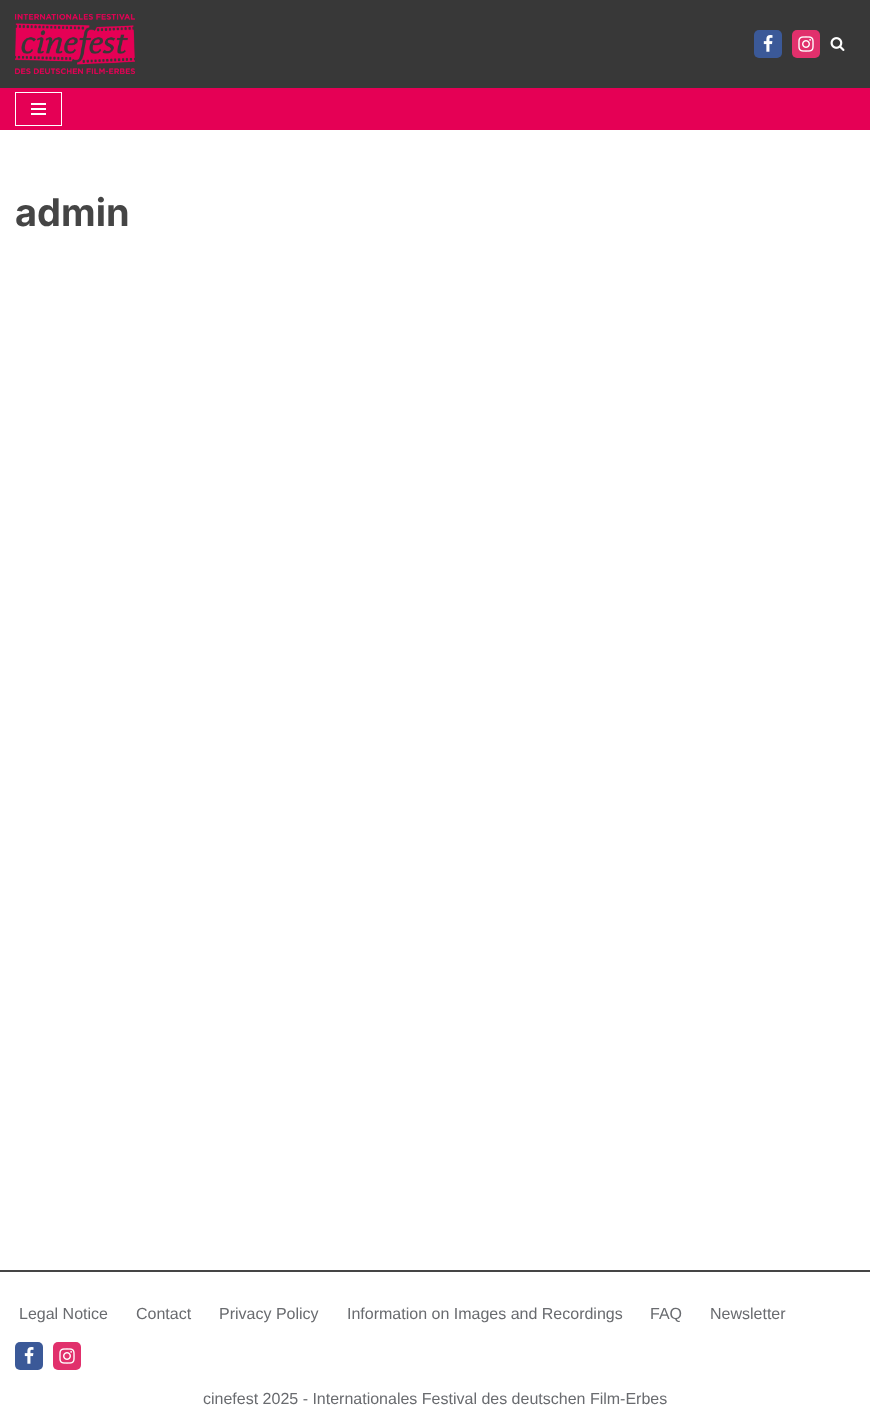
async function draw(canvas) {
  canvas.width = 870
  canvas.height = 1420
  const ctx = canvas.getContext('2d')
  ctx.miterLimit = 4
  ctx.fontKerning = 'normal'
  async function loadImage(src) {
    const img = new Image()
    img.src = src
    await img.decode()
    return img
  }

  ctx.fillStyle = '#fff'
  ctx.fillRect(0, 0, 870, 1420)
  ctx.fillStyle = '#383838'
  ctx.fillRect(0, 0, 870, 88)
  ctx.drawImage(await loadImage('image0.png'), 15, 14, 120, 60)
  ctx.fillStyle = '#3b5998'
  ctx.beginPath()
  ctx.roundRect(754, 30, 28, 28, 5)
  ctx.fill()
  ctx.drawImage(await loadImage('image1.png'), 763, 35, 10, 17)
  ctx.fillStyle = '#e1306c'
  ctx.beginPath()
  ctx.roundRect(792, 30, 28, 28, 5)
  ctx.fill()
  ctx.drawImage(await loadImage('image2.png'), 798, 36, 16, 16)
  ctx.drawImage(await loadImage('image3.png'), 830, 37, 15, 14)
  ctx.fillStyle = '#e50055'
  ctx.fillRect(0, 88, 870, 42)
  ctx.strokeStyle = '#fff'
  ctx.strokeRect(15.5, 92.5, 46, 33)
  ctx.fillStyle = '#fff'
  ctx.fillRect(31, 103, 15, 2)
  ctx.fillRect(31, 108, 15, 2)
  ctx.fillRect(31, 113, 15, 2)
  ctx.font = 'bold 38px Inter'
  ctx.fillStyle = '#454545'
  ctx.fillText('admin', 15, 226)
  ctx.fillRect(0, 1270, 870, 2)
  ctx.font = '16px Liberation Sans'
  ctx.fillStyle = '#696b6f'
  ctx.fillText('Legal Notice', 19, 1319)
  ctx.fillText('Contact', 136, 1319)
  ctx.fillText('Privacy Policy', 219, 1319)
  ctx.fillText('Information on Images and Recordings', 347, 1319)
  ctx.fillText('FAQ', 650, 1319)
  ctx.fillText('Newsletter', 710, 1319)
  ctx.fillStyle = '#3b5998'
  ctx.beginPath()
  ctx.roundRect(15, 1342, 28, 28, 5)
  ctx.fill()
  ctx.drawImage(await loadImage('image1.png'), 24, 1347, 10, 17)
  ctx.fillStyle = '#e1306c'
  ctx.beginPath()
  ctx.roundRect(53, 1342, 28, 28, 5)
  ctx.fill()
  ctx.drawImage(await loadImage('image2.png'), 59, 1348, 16, 16)
  ctx.fillStyle = '#696b6f'
  ctx.fillText('cinefest 2025 - Internationales Festival des deutschen Film-Erbes', 203, 1404)
}

draw(document.querySelector('canvas'))
